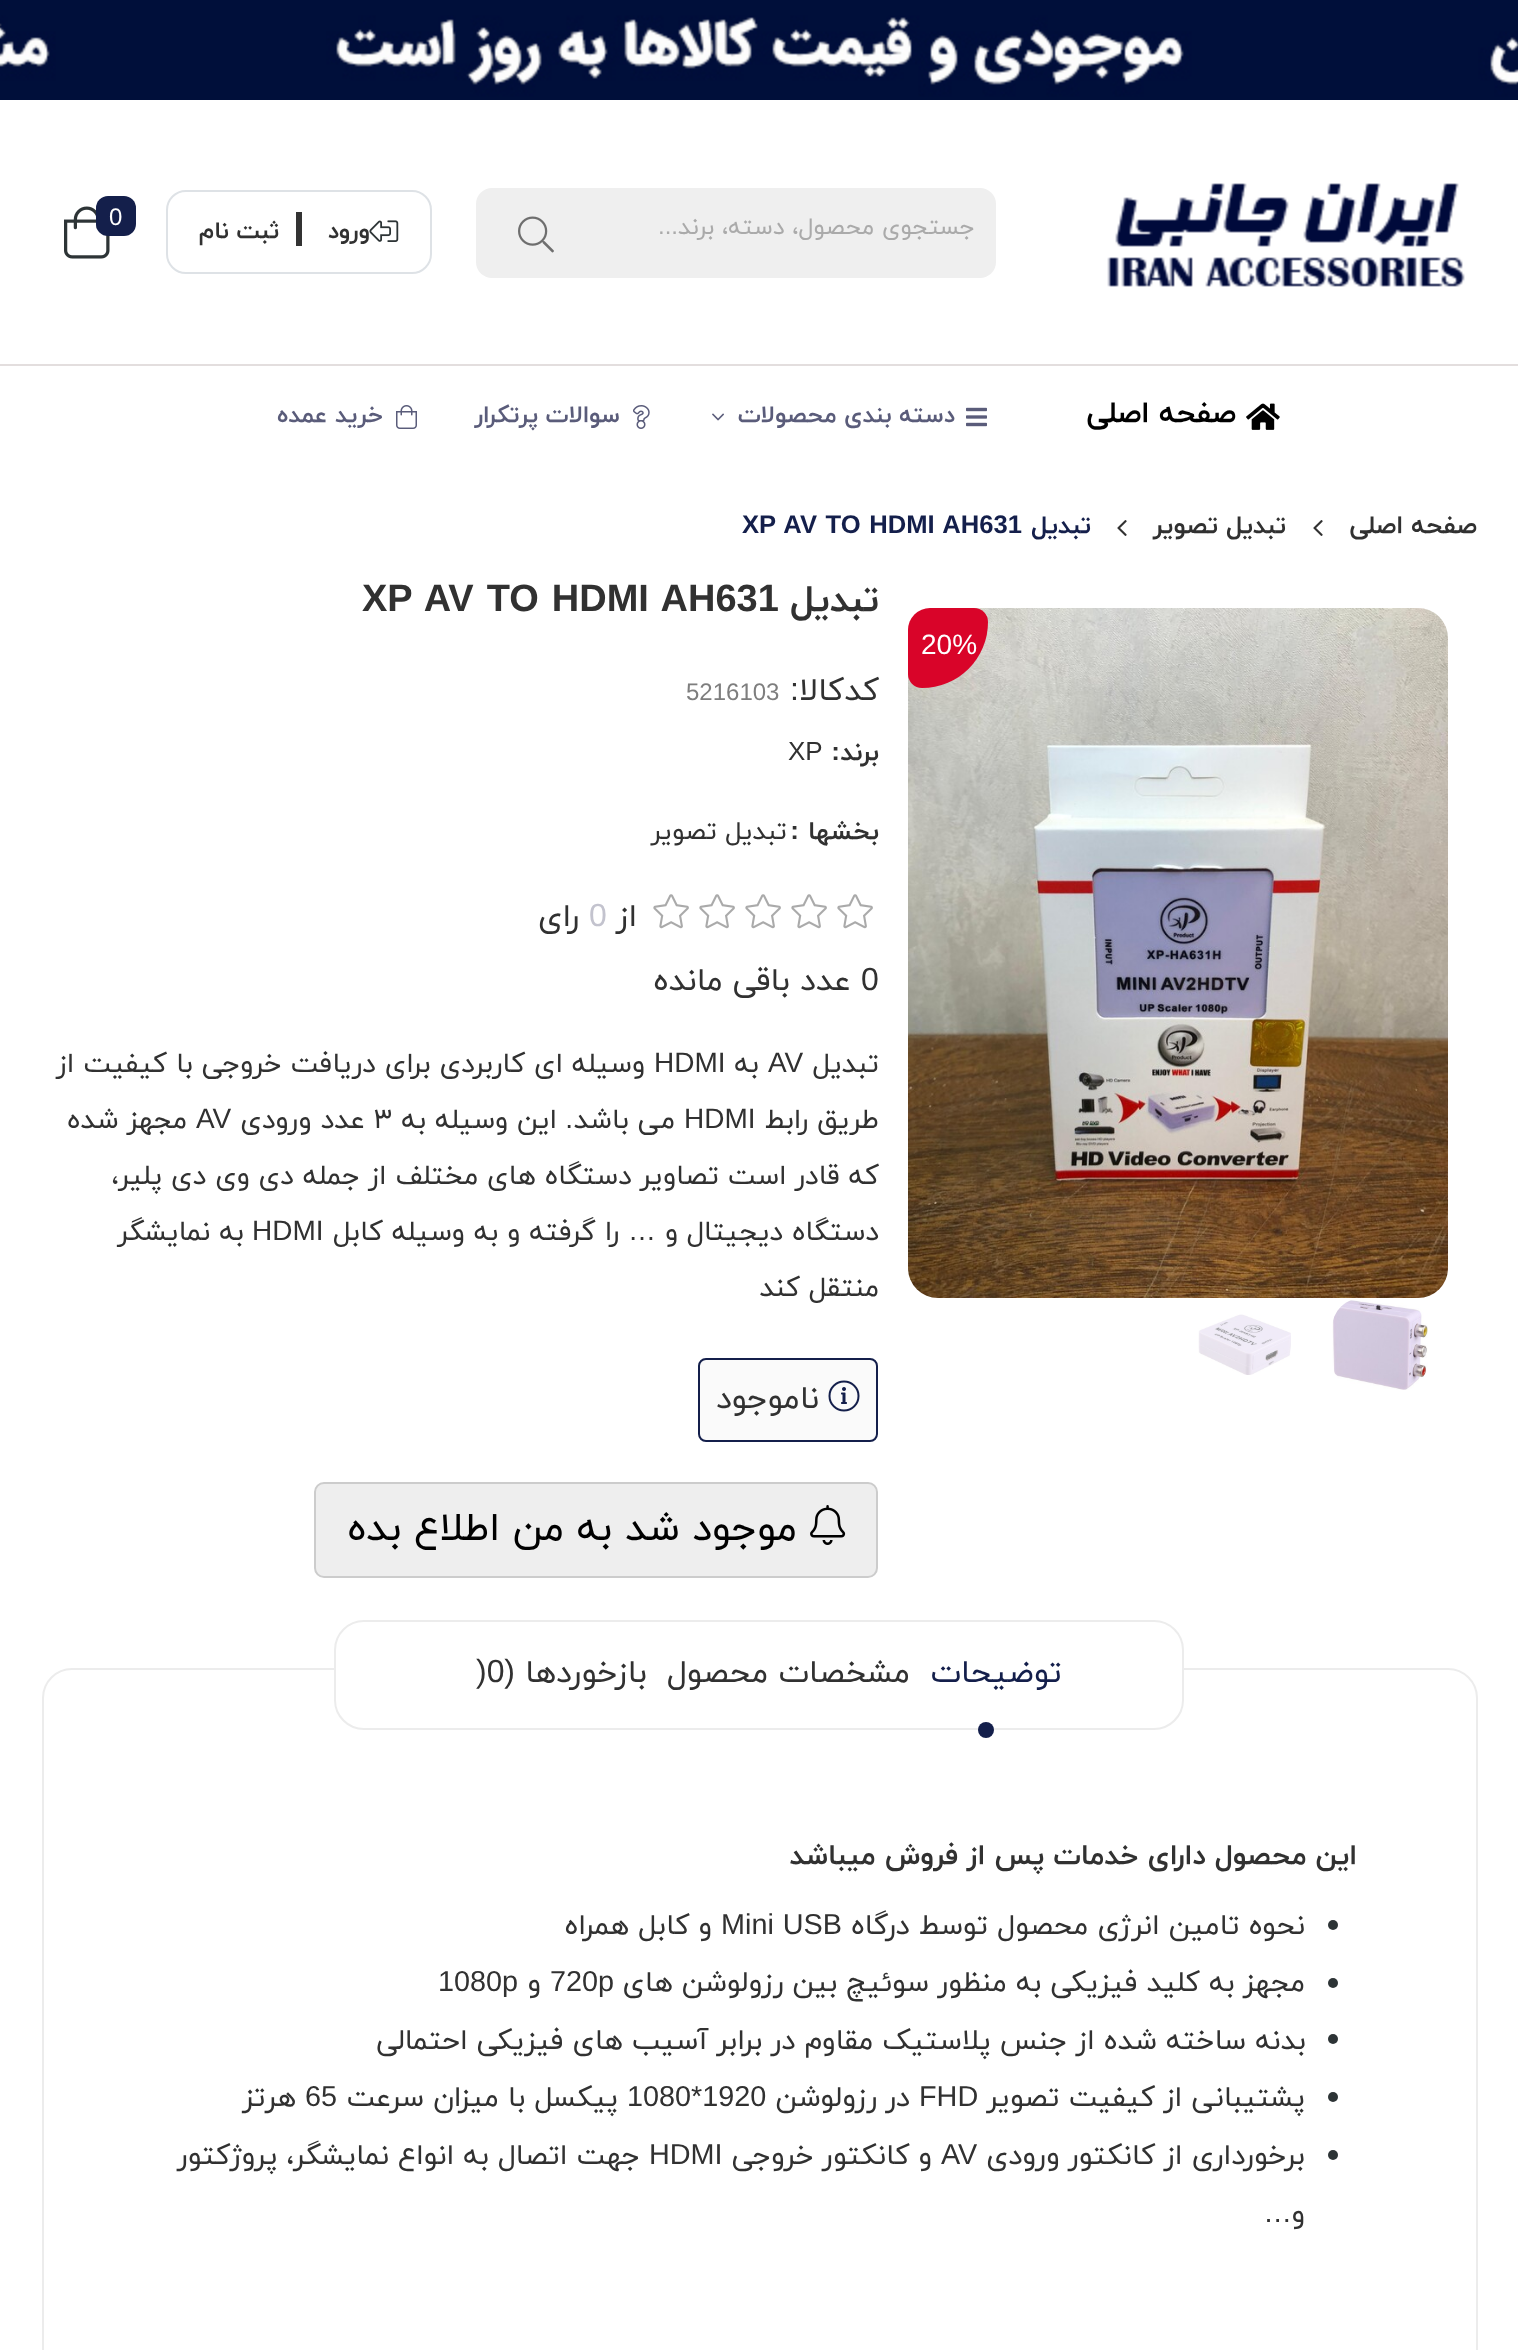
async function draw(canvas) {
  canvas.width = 1518
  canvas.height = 2350
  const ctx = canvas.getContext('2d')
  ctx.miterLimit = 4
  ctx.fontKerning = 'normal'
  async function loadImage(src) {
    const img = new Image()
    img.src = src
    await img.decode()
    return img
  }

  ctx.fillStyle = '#fff'
  ctx.fillRect(0, 0, 1518, 2350)
  ctx.drawImage(await loadImage('image0.png'), 0, 0, 1518, 100)
  ctx.fillStyle = '#e3dede'
  ctx.fillRect(0, 364, 1518, 2)
  ctx.drawImage(await loadImage('image1.png'), 1107, 183, 358, 104)
  ctx.fillStyle = '#efefef'
  ctx.beginPath()
  ctx.roundRect(476, 188, 520, 90, 16)
  ctx.fill()
  ctx.direction = 'rtl'
  ctx.font = '24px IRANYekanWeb'
  ctx.fillStyle = '#aaa'
  ctx.fillText('جستجوی محصول، دسته، برند', 975, 234)
  ctx.font = '24px Liberation Sans'
  ctx.fillText('...', 678, 234)
  ctx.drawImage(await loadImage('image2.png'), 518, 216, 36, 37)
  ctx.drawImage(await loadImage('image3.png'), 64, 206, 46, 53)
  ctx.fillStyle = '#141f4b'
  ctx.beginPath()
  ctx.roundRect(96, 196, 40, 40, 12)
  ctx.fill()
  ctx.direction = 'ltr'
  ctx.fillStyle = '#fff'
  ctx.fillText('0', 109, 225)
  ctx.beginPath()
  ctx.roundRect(167, 191, 264, 82, 19)
  ctx.strokeStyle = '#dee2e6'
  ctx.lineWidth = 2
  ctx.stroke()
  ctx.drawImage(await loadImage('image4.png'), 369, 220, 30, 22)
  ctx.direction = 'rtl'
  ctx.font = 'bold 24px IRANYekanWeb'
  ctx.fillStyle = '#313131'
  ctx.fillText('ورود', 370, 238)
  ctx.fillStyle = '#333'
  ctx.fillRect(296, 212, 6, 34)
  ctx.fillStyle = '#313131'
  ctx.fillText('ثبت نام', 279, 238)
  ctx.drawImage(await loadImage('image5.png'), 1246, 403, 34, 27)
  ctx.font = 'bold 30px IRANYekanWeb'
  ctx.fillStyle = '#000'
  ctx.fillText('صفحه اصلی', 1236, 422)
  ctx.drawImage(await loadImage('image6.png'), 966, 407, 21, 20)
  ctx.font = 'bold 24px IRANYekanWeb'
  ctx.fillStyle = '#5a5c7a'
  ctx.fillText('دسته بندی محصولات', 955, 422)
  ctx.drawImage(await loadImage('image7.png'), 712, 413, 12, 8)
  ctx.drawImage(await loadImage('image8.png'), 633, 405, 17, 24)
  ctx.fillText('سوالات پرتکرار', 620, 422)
  ctx.drawImage(await loadImage('image9.png'), 396, 405, 21, 24)
  ctx.fillText('خرید عمده', 383, 422)
  ctx.font = 'bold 25.6px IRANYekanWeb'
  ctx.fillStyle = '#313131'
  ctx.fillText('صفحه اصلی', 1477, 533)
  ctx.drawImage(await loadImage('image10.png'), 1313, 520, 10, 16)
  ctx.fillText('تبدیل تصویر', 1286, 533)
  ctx.drawImage(await loadImage('image10.png'), 1117, 520, 10, 16)
  ctx.fillStyle = '#141f4b'
  ctx.fillText('تبدیل', 1091, 533)
  ctx.wordSpacing = '1.5px'
  ctx.direction = 'ltr'
  ctx.font = 'bold 25.6px Liberation Sans'
  ctx.fillText('XP AV TO HDMI AH631', 742, 533)
  ctx.drawImage(await loadImage('image11.png'), 908, 608, 540, 690)
  ctx.fillStyle = '#d90429'
  ctx.beginPath()
  ctx.roundRect(908, 608, 80, 80, [22, 14, 66, 14])
  ctx.fill()
  ctx.wordSpacing = '0px'
  ctx.font = '28px Liberation Sans'
  ctx.fillStyle = '#fff'
  ctx.fillText('20%', 921, 654)
  ctx.drawImage(await loadImage('image12.png'), 1332, 1299, 96, 91)
  ctx.drawImage(await loadImage('image13.png'), 1198, 1314, 93, 61)
  ctx.direction = 'rtl'
  ctx.font = 'bold 38px IRANYekanWeb'
  ctx.fillStyle = '#313131'
  ctx.fillText('تبدیل', 879, 611)
  ctx.wordSpacing = '2.5px'
  ctx.direction = 'ltr'
  ctx.font = 'bold 38px Liberation Sans'
  ctx.fillText('XP AV TO HDMI AH631', 362, 611)
  ctx.wordSpacing = '0px'
  ctx.direction = 'rtl'
  ctx.font = '32px IRANYekanWeb'
  ctx.fillText('کدکالا', 879, 700)
  ctx.font = '32px Liberation Sans'
  ctx.fillText(':', 799, 700)
  ctx.direction = 'ltr'
  ctx.font = '24px Liberation Sans'
  ctx.fillStyle = '#7e7e7e'
  ctx.fillText('5216103', 686, 700)
  ctx.direction = 'rtl'
  ctx.font = 'bold 26px IRANYekanWeb'
  ctx.fillStyle = '#313131'
  ctx.fillText('برند', 879, 760)
  ctx.font = 'bold 26px Liberation Sans'
  ctx.fillText(':', 840, 760)
  ctx.direction = 'ltr'
  ctx.font = '26px Liberation Sans'
  ctx.fillText('XP', 788, 760)
  ctx.direction = 'rtl'
  ctx.font = 'bold 26px IRANYekanWeb'
  ctx.fillText('بخشها', 879, 839)
  ctx.font = 'bold 26px Liberation Sans'
  ctx.fillText(':', 799, 839)
  ctx.font = '26px IRANYekanWeb'
  ctx.fillText('تبدیل تصویر', 787, 839)
  ctx.drawImage(await loadImage('image14.png'), 837, 894, 36, 35)
  ctx.drawImage(await loadImage('image14.png'), 791, 894, 36, 35)
  ctx.drawImage(await loadImage('image14.png'), 745, 894, 36, 35)
  ctx.drawImage(await loadImage('image14.png'), 699, 894, 36, 35)
  ctx.drawImage(await loadImage('image14.png'), 653, 894, 36, 35)
  ctx.font = '32px IRANYekanWeb'
  ctx.fillText('از', 637, 926)
  ctx.direction = 'ltr'
  ctx.font = '32px Liberation Sans'
  ctx.fillStyle = '#c3c3ce'
  ctx.fillText('0', 589, 926)
  ctx.direction = 'rtl'
  ctx.font = '32px IRANYekanWeb'
  ctx.fillStyle = '#313131'
  ctx.fillText('رای', 579, 926)
  ctx.direction = 'ltr'
  ctx.font = '32px Liberation Sans'
  ctx.fillText('0', 861, 990)
  ctx.direction = 'rtl'
  ctx.font = '32px IRANYekanWeb'
  ctx.fillText('عدد باقی مانده', 851, 990)
  ctx.font = '28px IRANYekanWeb'
  ctx.fillText('تبدیل', 879, 1072)
  ctx.direction = 'ltr'
  ctx.font = '28px Liberation Sans'
  ctx.fillText('AV', 768, 1072)
  ctx.direction = 'rtl'
  ctx.font = '28px IRANYekanWeb'
  ctx.fillText('به', 759, 1072)
  ctx.direction = 'ltr'
  ctx.font = '28px Liberation Sans'
  ctx.fillText('HDMI', 654, 1072)
  ctx.direction = 'rtl'
  ctx.font = '28px IRANYekanWeb'
  ctx.fillText('وسیله ای کاربردی برای دریافت خروجی با کیفیت از', 645, 1072)
  ctx.fillText('طریق رابط', 879, 1128)
  ctx.direction = 'ltr'
  ctx.font = '28px Liberation Sans'
  ctx.fillText('HDMI', 684, 1128)
  ctx.direction = 'rtl'
  ctx.font = '28px IRANYekanWeb'
  ctx.fillText('می باشد', 675, 1128)
  ctx.font = '28px Liberation Sans'
  ctx.fillText('.', 573, 1128)
  ctx.font = '28px IRANYekanWeb'
  ctx.fillText('این وسیله به', 557, 1128)
  ctx.direction = 'ltr'
  ctx.fillText('۳', 374, 1128)
  ctx.direction = 'rtl'
  ctx.fillText('عدد ورودی', 365, 1128)
  ctx.direction = 'ltr'
  ctx.font = '28px Liberation Sans'
  ctx.fillText('AV', 196, 1128)
  ctx.direction = 'rtl'
  ctx.font = '28px IRANYekanWeb'
  ctx.fillText('مجهز شده', 187, 1128)
  ctx.fillText('که قادر است تصاویر دستگاه های مختلف از جمله دی وی دی پلیر،', 879, 1184)
  ctx.fillText('دستگاه دیجیتال و', 879, 1240)
  ctx.font = '28px Liberation Sans'
  ctx.fillText('…', 656, 1240)
  ctx.font = '28px IRANYekanWeb'
  ctx.fillText('را گرفته و به وسیله کابل', 619, 1240)
  ctx.direction = 'ltr'
  ctx.font = '28px Liberation Sans'
  ctx.fillText('HDMI', 252, 1240)
  ctx.direction = 'rtl'
  ctx.font = '28px IRANYekanWeb'
  ctx.fillText('به نمایشگر', 244, 1240)
  ctx.fillText('منتقل کند', 879, 1296)
  ctx.fillStyle = '#fafafa'
  ctx.beginPath()
  ctx.roundRect(699, 1359, 178, 82, 7)
  ctx.fill()
  ctx.strokeStyle = '#141f4b'
  ctx.stroke()
  ctx.drawImage(await loadImage('image15.png'), 828, 1380, 32, 32)
  ctx.font = '32px IRANYekanWeb'
  ctx.fillStyle = '#313131'
  ctx.fillText('ناموجود', 819, 1408)
  ctx.fillStyle = '#eee'
  ctx.beginPath()
  ctx.roundRect(315, 1483, 562, 94, 9)
  ctx.fill()
  ctx.strokeStyle = '#ccc'
  ctx.stroke()
  ctx.drawImage(await loadImage('image16.png'), 810, 1505, 36, 40)
  ctx.font = '40px IRANYekanWeb'
  ctx.fillStyle = '#000'
  ctx.fillText('موجود شد به من اطلاع بده', 797, 1540)
  ctx.beginPath()
  ctx.roundRect(43, 1669, 1434, 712, 29)
  ctx.strokeStyle = '#ececec'
  ctx.stroke()
  ctx.fillStyle = '#fff'
  ctx.beginPath()
  ctx.roundRect(335, 1621, 848, 108, 29)
  ctx.fill()
  ctx.stroke()
  ctx.font = '32px IRANYekanWeb'
  ctx.fillStyle = '#141f4b'
  ctx.fillText('توضیحات', 1062, 1682)
  ctx.beginPath()
  ctx.arc(986, 1730, 8, 0, 2 * Math.PI)
  ctx.fill()
  ctx.fillStyle = '#313131'
  ctx.fillText('مشخصات محصول', 910, 1682)
  ctx.fillText('بازخوردها', 647, 1682)
  ctx.font = '32px Liberation Sans'
  ctx.fillText('(', 515, 1682)
  ctx.direction = 'ltr'
  ctx.fillText(')0', 476, 1682)
  ctx.direction = 'rtl'
  ctx.font = 'bold 28.8px IRANYekanWeb'
  ctx.fillText('این محصول دارای خدمات پس از فروش میباشد', 1357, 1864)
  ctx.fillStyle = '#2d3436'
  ctx.beginPath()
  ctx.arc(1333, 1925, 5, 0, 2 * Math.PI)
  ctx.fill()
  ctx.font = '28.8px IRANYekanWeb'
  ctx.fillStyle = '#313131'
  ctx.fillText('نحوه تامین انرژی محصول توسط درگاه', 1305, 1934)
  ctx.wordSpacing = '1px'
  ctx.direction = 'ltr'
  ctx.font = '28.8px Liberation Sans'
  ctx.fillText('Mini USB', 721, 1934)
  ctx.wordSpacing = '0px'
  ctx.direction = 'rtl'
  ctx.font = '28.8px IRANYekanWeb'
  ctx.fillText('و کابل همراه', 712, 1934)
  ctx.fillStyle = '#2d3436'
  ctx.beginPath()
  ctx.arc(1333, 1983, 5, 0, 2 * Math.PI)
  ctx.fill()
  ctx.fillStyle = '#313131'
  ctx.fillText('مجهز به کلید فیزیکی به منظور سوئیچ بین رزولوشن های', 1305, 1991)
  ctx.direction = 'ltr'
  ctx.font = '28.8px Liberation Sans'
  ctx.fillText('720p', 550, 1991)
  ctx.direction = 'rtl'
  ctx.font = '28.8px IRANYekanWeb'
  ctx.fillText('و', 541, 1991)
  ctx.direction = 'ltr'
  ctx.font = '28.8px Liberation Sans'
  ctx.fillText('1080p', 438, 1991)
  ctx.fillStyle = '#2d3436'
  ctx.beginPath()
  ctx.arc(1333, 2039, 5, 0, 2 * Math.PI)
  ctx.fill()
  ctx.direction = 'rtl'
  ctx.font = '28.8px IRANYekanWeb'
  ctx.fillStyle = '#313131'
  ctx.fillText('بدنه ساخته شده از جنس پلاستیک مقاوم در برابر آسیب های فیزیکی احتمالی', 1306, 2049)
  ctx.fillStyle = '#2d3436'
  ctx.beginPath()
  ctx.arc(1333, 2097, 5, 0, 2 * Math.PI)
  ctx.fill()
  ctx.fillStyle = '#313131'
  ctx.fillText('پشتیبانی از کیفیت تصویر', 1305, 2106)
  ctx.direction = 'ltr'
  ctx.font = '28.8px Liberation Sans'
  ctx.fillText('FHD', 919, 2106)
  ctx.direction = 'rtl'
  ctx.font = '28.8px IRANYekanWeb'
  ctx.fillText('در رزولوشن', 910, 2106)
  ctx.direction = 'ltr'
  ctx.font = '28.8px Liberation Sans'
  ctx.fillText('1080*1920', 627, 2106)
  ctx.direction = 'rtl'
  ctx.font = '28.8px IRANYekanWeb'
  ctx.fillText('پیکسل با میزان سرعت', 618, 2106)
  ctx.direction = 'ltr'
  ctx.font = '28.8px Liberation Sans'
  ctx.fillText('65', 305, 2106)
  ctx.direction = 'rtl'
  ctx.font = '28.8px IRANYekanWeb'
  ctx.fillText('هرتز', 296, 2106)
  ctx.fillStyle = '#2d3436'
  ctx.beginPath()
  ctx.arc(1333, 2155, 5, 0, 2 * Math.PI)
  ctx.fill()
  ctx.fillStyle = '#313131'
  ctx.fillText('برخورداری از کانکتور ورودی', 1305, 2164)
  ctx.direction = 'ltr'
  ctx.font = '28.8px Liberation Sans'
  ctx.fillText('AV', 941, 2164)
  ctx.direction = 'rtl'
  ctx.font = '28.8px IRANYekanWeb'
  ctx.fillText('و کانکتور خروجی', 932, 2164)
  ctx.direction = 'ltr'
  ctx.font = '28.8px Liberation Sans'
  ctx.fillText('HDMI', 649, 2164)
  ctx.direction = 'rtl'
  ctx.font = '28.8px IRANYekanWeb'
  ctx.fillText('جهت اتصال به انواع نمایشگر، پروژکتور', 640, 2164)
  ctx.fillText('و', 1305, 2222)
  ctx.font = '28.8px Liberation Sans'
  ctx.fillText('…', 1292, 2222)
}

draw(document.querySelector('canvas'))
